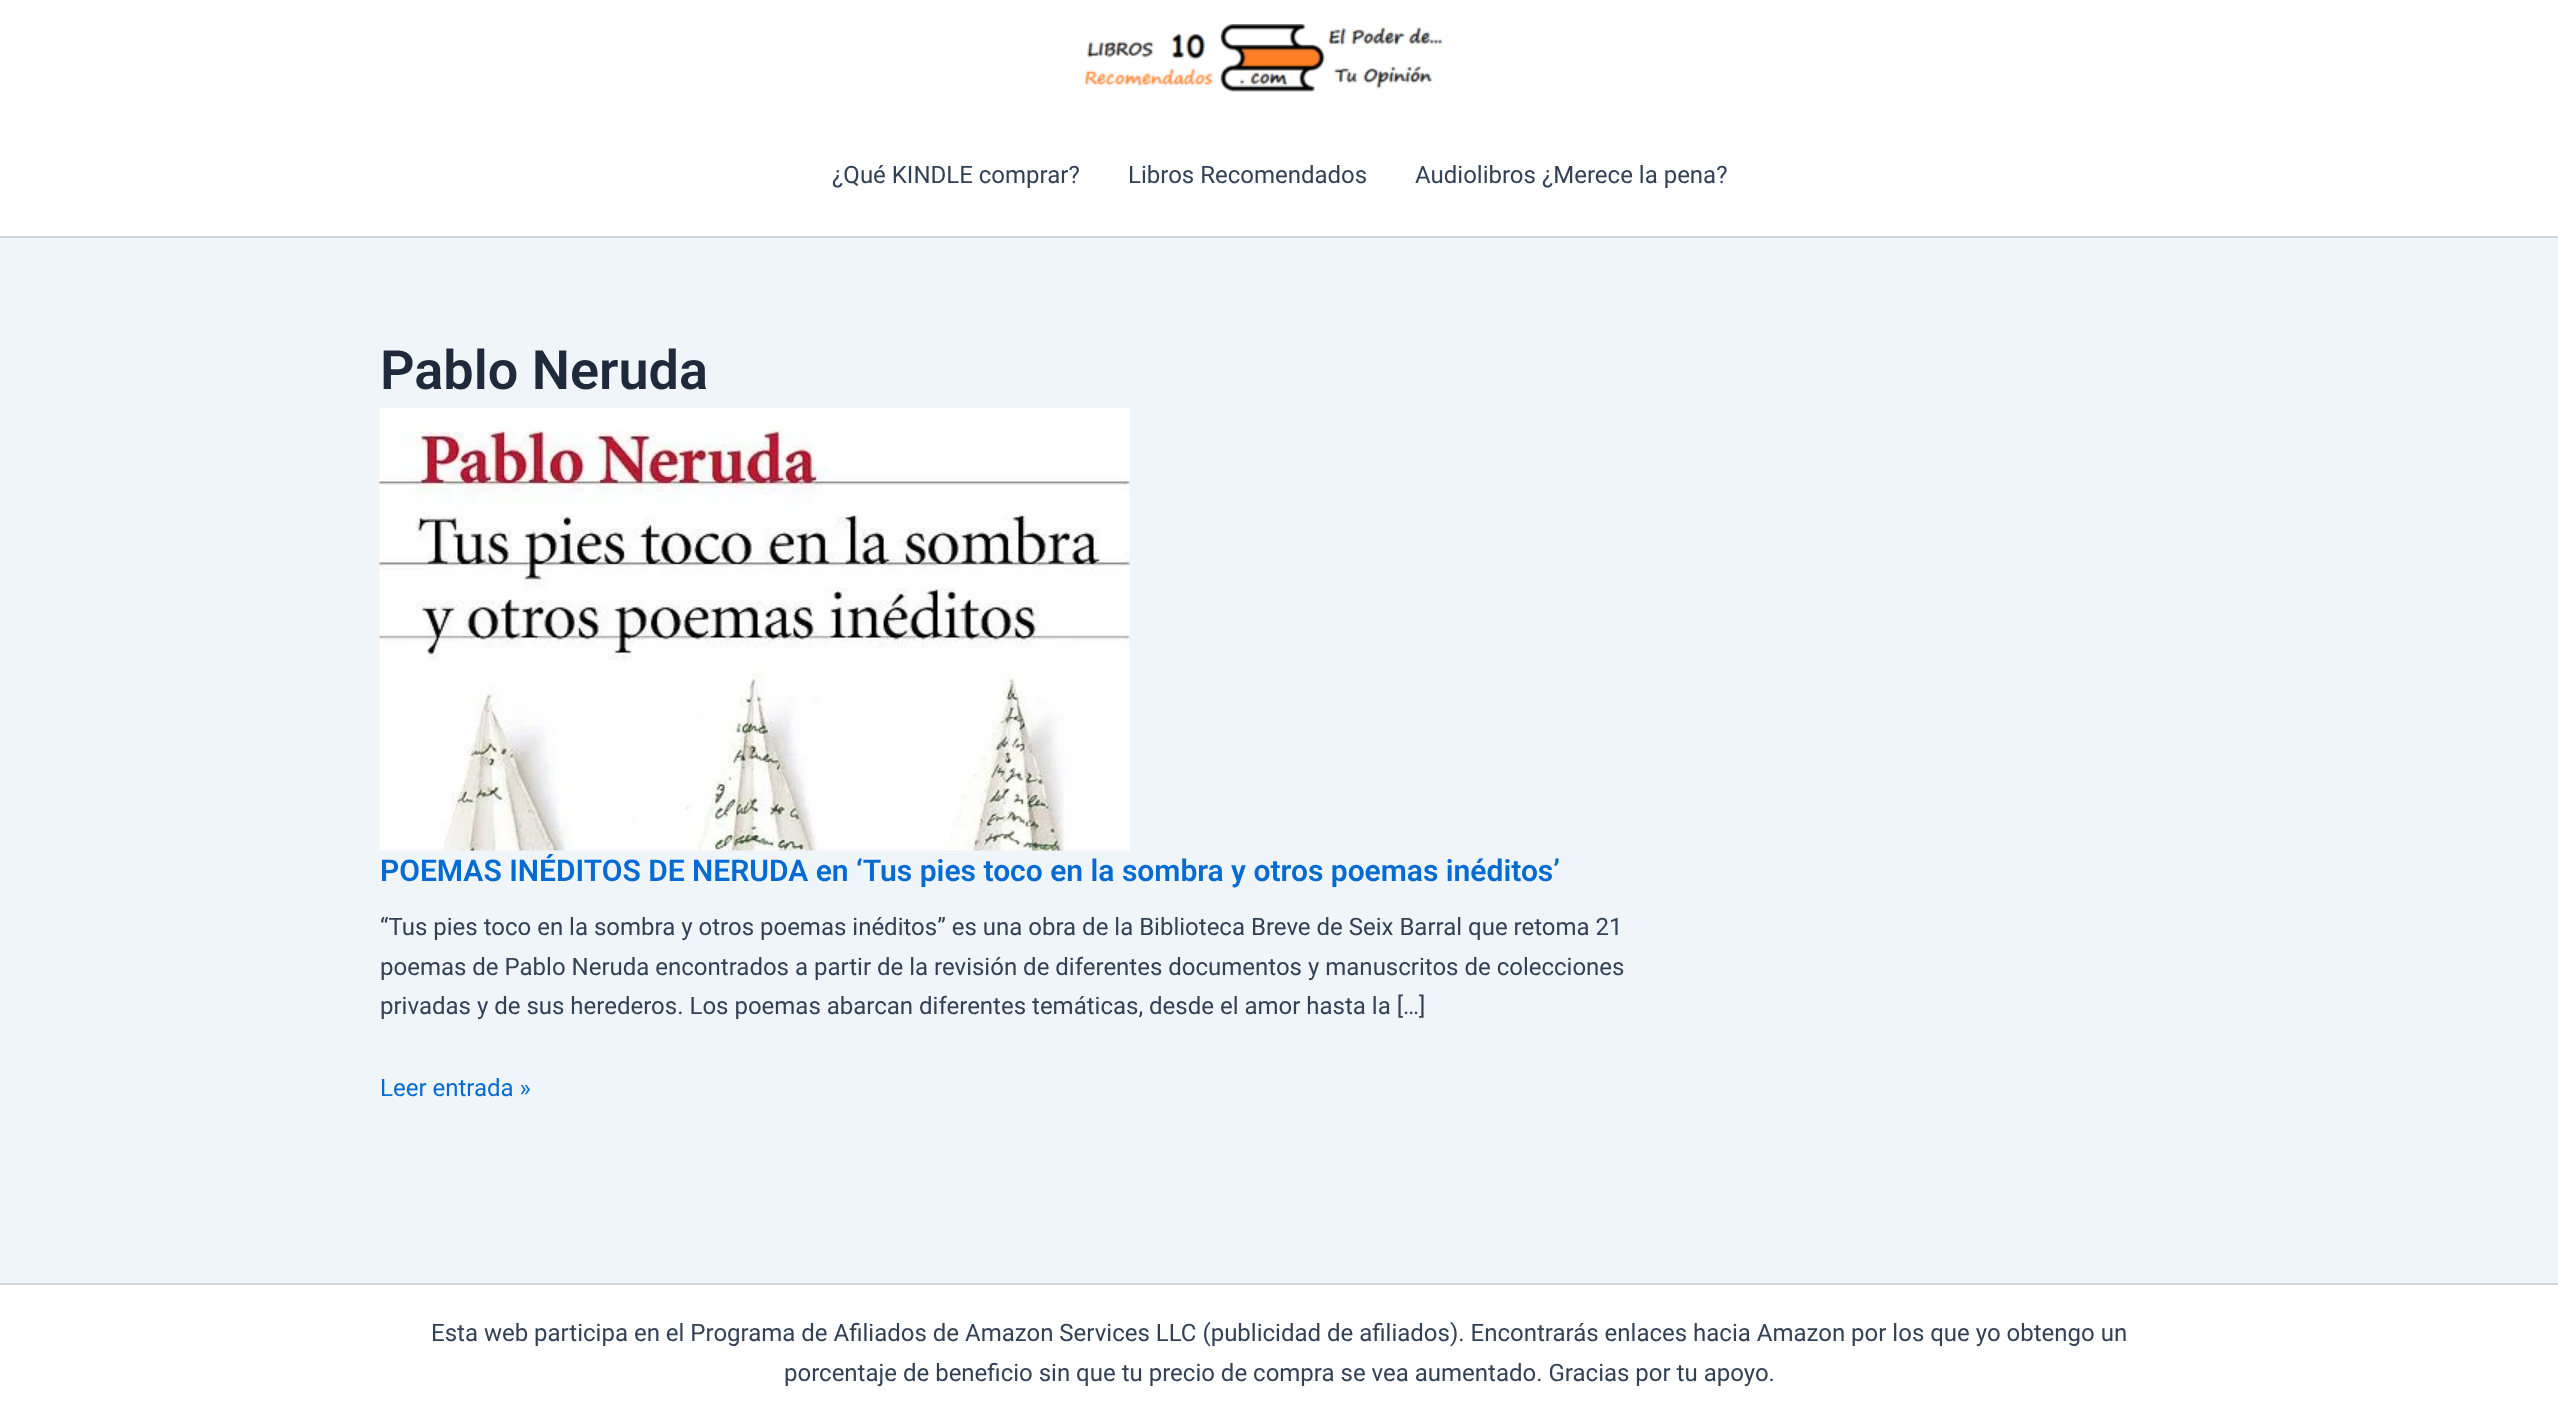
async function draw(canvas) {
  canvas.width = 2558
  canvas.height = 1406
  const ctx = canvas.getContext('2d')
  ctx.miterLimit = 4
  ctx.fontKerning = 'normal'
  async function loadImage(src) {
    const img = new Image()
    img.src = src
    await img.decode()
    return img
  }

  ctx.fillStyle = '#f0f5fa'
  ctx.fillRect(0, 0, 2558, 1406)
  ctx.fillStyle = '#fff'
  ctx.fillRect(0, 0, 2558, 236)
  ctx.drawImage(await loadImage('image0.png'), 1083, 24, 360, 68)
  ctx.fillStyle = '#d1d5db'
  ctx.fillRect(0, 236, 2558, 2)
  ctx.font = '24px Roboto'
  ctx.fillStyle = '#334155'
  ctx.fillText('¿Qué KINDLE comprar?', 832, 183)
  ctx.fillText('Libros Recomendados', 1128, 183)
  ctx.fillText('Audiolibros ¿Merece la pena?', 1415, 183)
  ctx.font = '600 54px Roboto'
  ctx.fillStyle = '#1e293b'
  ctx.fillText('Pablo Neruda', 380, 389)
  ctx.drawImage(await loadImage('image1.png'), 379, 408, 751, 443)
  ctx.font = '600 30px Roboto'
  ctx.fillStyle = '#046bd2'
  ctx.fillText('POEMAS INÉDITOS DE NERUDA en ‘Tus pies toco en la sombra y otros poemas inéditos’', 380, 881)
  ctx.font = '24px Roboto'
  ctx.fillStyle = '#334155'
  ctx.fillText('“Tus pies toco en la sombra y otros poemas inéditos” es una obra de la Biblioteca Breve de Seix Barral que retoma 21', 380, 935)
  ctx.fillText('poemas de Pablo Neruda encontrados a partir de la revisión de diferentes documentos y manuscritos de colecciones', 380, 975)
  ctx.fillText('privadas y de sus herederos. Los poemas abarcan diferentes temáticas, desde el amor hasta la […]', 380, 1014)
  ctx.fillStyle = '#046bd2'
  ctx.fillText('Leer entrada »', 380, 1096)
  ctx.fillStyle = '#fff'
  ctx.fillRect(0, 1285, 2558, 121)
  ctx.fillStyle = '#d1d5db'
  ctx.fillRect(0, 1283, 2558, 2)
  ctx.fillStyle = '#334155'
  ctx.fillText('Esta web participa en el Programa de Afiliados de Amazon Services LLC (publicidad de afiliados). Encontrarás enlaces hacia Amazon por los que yo obtengo un', 431, 1341)
  ctx.fillText('porcentaje de beneficio sin que tu precio de compra se vea aumentado. Gracias por tu apoyo.', 784, 1381)
}

draw(document.querySelector('canvas'))
